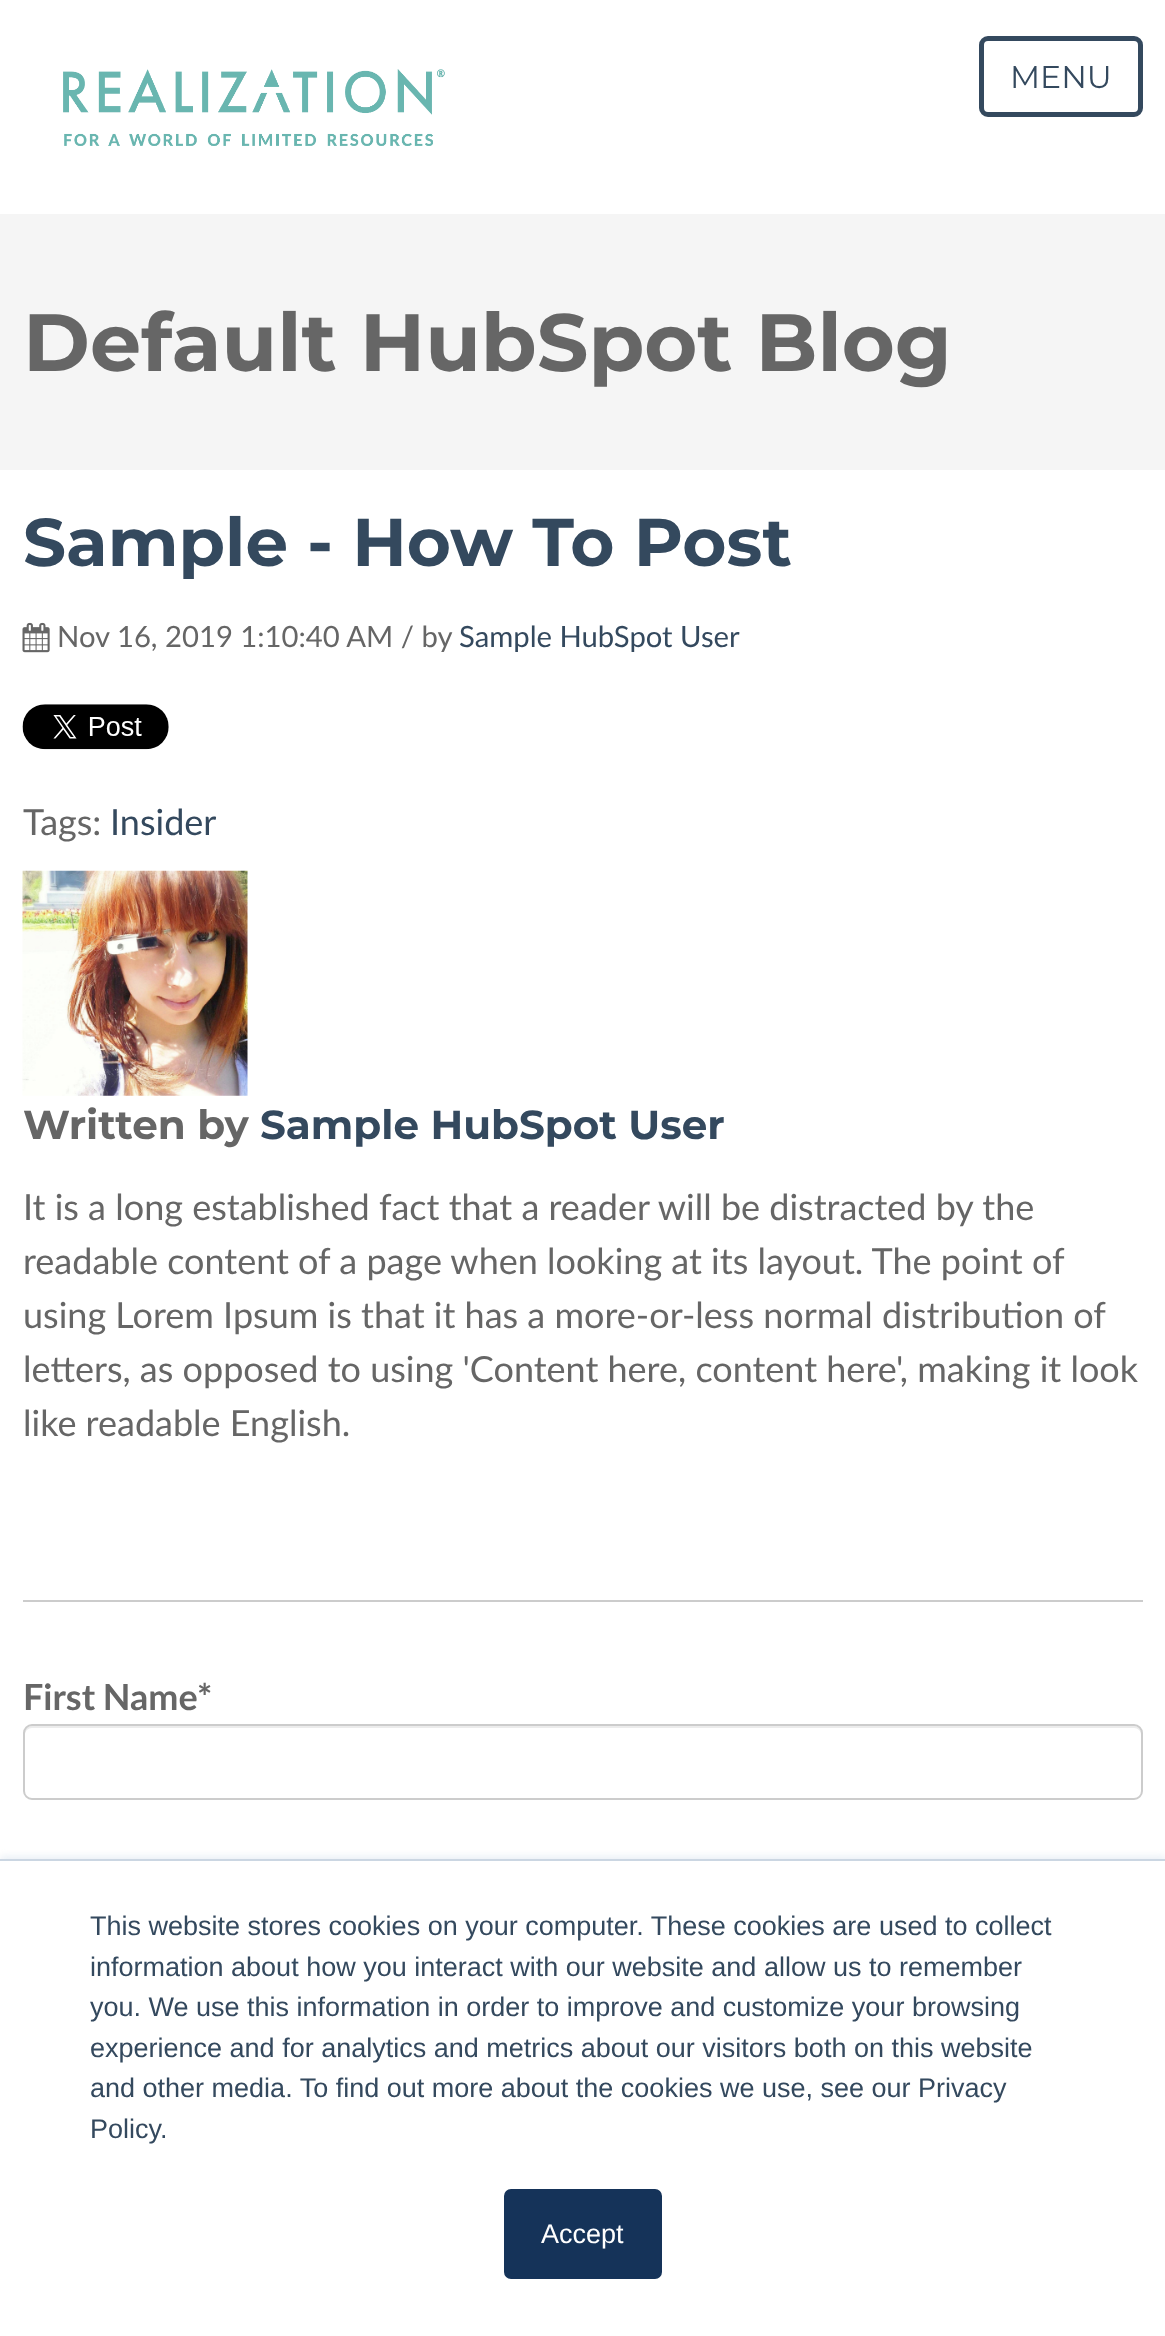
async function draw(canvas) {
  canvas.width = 1165
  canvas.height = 2336
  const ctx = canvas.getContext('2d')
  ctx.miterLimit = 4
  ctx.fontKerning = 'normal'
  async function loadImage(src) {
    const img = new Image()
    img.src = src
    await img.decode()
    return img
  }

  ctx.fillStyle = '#fff'
  ctx.fillRect(0, 0, 1165, 2336)
  ctx.drawImage(await loadImage('image0.png'), 63, 69, 382, 77)
  ctx.beginPath()
  ctx.roundRect(981.5, 38.5, 159, 76, 6.5)
  ctx.strokeStyle = '#34495e'
  ctx.lineWidth = 5
  ctx.stroke()
  ctx.font = '31.5px Montserrat'
  ctx.fillStyle = '#34495e'
  ctx.fillText('MENU', 1010, 88)
  ctx.fillStyle = '#f5f5f5'
  ctx.fillRect(0, 214, 1165, 256)
  ctx.font = 'bold 81px Montserrat'
  ctx.fillStyle = '#666'
  ctx.fillText('Default HubSpot Blog', 23, 371)
  ctx.font = 'bold 67.5px Montserrat'
  ctx.fillStyle = '#34495e'
  ctx.fillText('Sample - How To Post', 23, 566)
  ctx.drawImage(await loadImage('image1.png'), 22, 622, 28, 31)
  ctx.font = '29.25px Lato'
  ctx.fillStyle = '#666'
  ctx.fillText('Nov 16, 2019 1:10:40 AM / by', 57, 647)
  ctx.fillStyle = '#34495e'
  ctx.fillText('Sample HubSpot User', 459, 647)
  ctx.drawImage(await loadImage('image2.png'), 22, 704, 147, 46)
  ctx.font = '36px Lato'
  ctx.fillStyle = '#666'
  ctx.fillText('Tags:', 23, 835)
  ctx.fillStyle = '#34495e'
  ctx.fillText('Insider', 110, 835)
  ctx.drawImage(await loadImage('image3.png'), 22, 870, 226, 226)
  ctx.font = 'bold 40.5px Montserrat'
  ctx.fillStyle = '#666'
  ctx.fillText('Written by', 23, 1139)
  ctx.fillStyle = '#34495e'
  ctx.fillText('Sample HubSpot User', 260, 1139)
  ctx.font = '36px Lato'
  ctx.fillStyle = '#666'
  ctx.fillText('It is a long established fact that a reader will be distracted by the', 23, 1220)
  ctx.fillText('readable content of a page when looking at its layout. The point of', 23, 1274)
  ctx.fillText('using Lorem Ipsum is that it has a more-or-less normal distribution of', 23, 1328)
  ctx.fillText('letters, as opposed to using \'Content here, content here\', making it look', 23, 1382)
  ctx.fillText('like readable English.', 23, 1436)
  ctx.fillStyle = '#ccc'
  ctx.fillRect(23, 1600, 1120, 2)
  ctx.wordSpacing = '-1px'
  ctx.font = 'bold 36px Lato'
  ctx.fillStyle = '#666'
  ctx.fillText('First Name', 23, 1710)
  ctx.wordSpacing = '0px'
  ctx.fillText('*', 197, 1710)
  ctx.fillStyle = '#ececec'
  ctx.beginPath()
  ctx.moveTo(32, 1728)
  ctx.lineTo(1134, 1728)
  ctx.bezierCurveTo(1138, 1728, 1141, 1731, 1141, 1735)
  ctx.lineTo(1141, 1733)
  ctx.bezierCurveTo(1141, 1729, 1138, 1726, 1134, 1726)
  ctx.lineTo(32, 1726)
  ctx.bezierCurveTo(28, 1726, 25, 1729, 25, 1733)
  ctx.lineTo(25, 1735)
  ctx.bezierCurveTo(25, 1731, 28, 1728, 32, 1728)
  ctx.closePath()
  ctx.fill()
  ctx.beginPath()
  ctx.roundRect(24, 1725, 1118, 74, 8)
  ctx.strokeStyle = '#ccc'
  ctx.lineWidth = 2
  ctx.stroke()
  ctx.fillStyle = '#eaf0f6'
  ctx.filter = 'blur(3.5px)'
  ctx.beginPath()
  ctx.rect(0, 1856, 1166, 480)
  ctx.fill()
  ctx.filter = 'none'
  ctx.fillStyle = '#fff'
  ctx.fillRect(0, 1861, 1165, 475)
  ctx.fillStyle = '#cbd6e2'
  ctx.fillRect(0, 1859, 1165, 2)
  ctx.font = '27px Liberation Sans'
  ctx.fillStyle = '#34495e'
  ctx.fillText('This website stores cookies on your computer. These cookies are used to collect', 90, 1935)
  ctx.fillText('information about how you interact with our website and allow us to remember', 90, 1976)
  ctx.fillText('you. We use this information in order to improve and customize your browsing', 90, 2016)
  ctx.fillText('experience and for analytics and metrics about our visitors both on this website', 90, 2057)
  ctx.fillText('and other media. To find out more about the cookies we use, see our Privacy', 90, 2097)
  ctx.fillText('Policy.', 90, 2138)
  ctx.fillStyle = '#153359'
  ctx.beginPath()
  ctx.roundRect(505, 2190, 156, 88, 6)
  ctx.fill()
  ctx.strokeStyle = '#153359'
  ctx.stroke()
  ctx.fillStyle = '#fff'
  ctx.fillText('Accept', 541, 2243)
}

draw(document.querySelector('canvas'))
